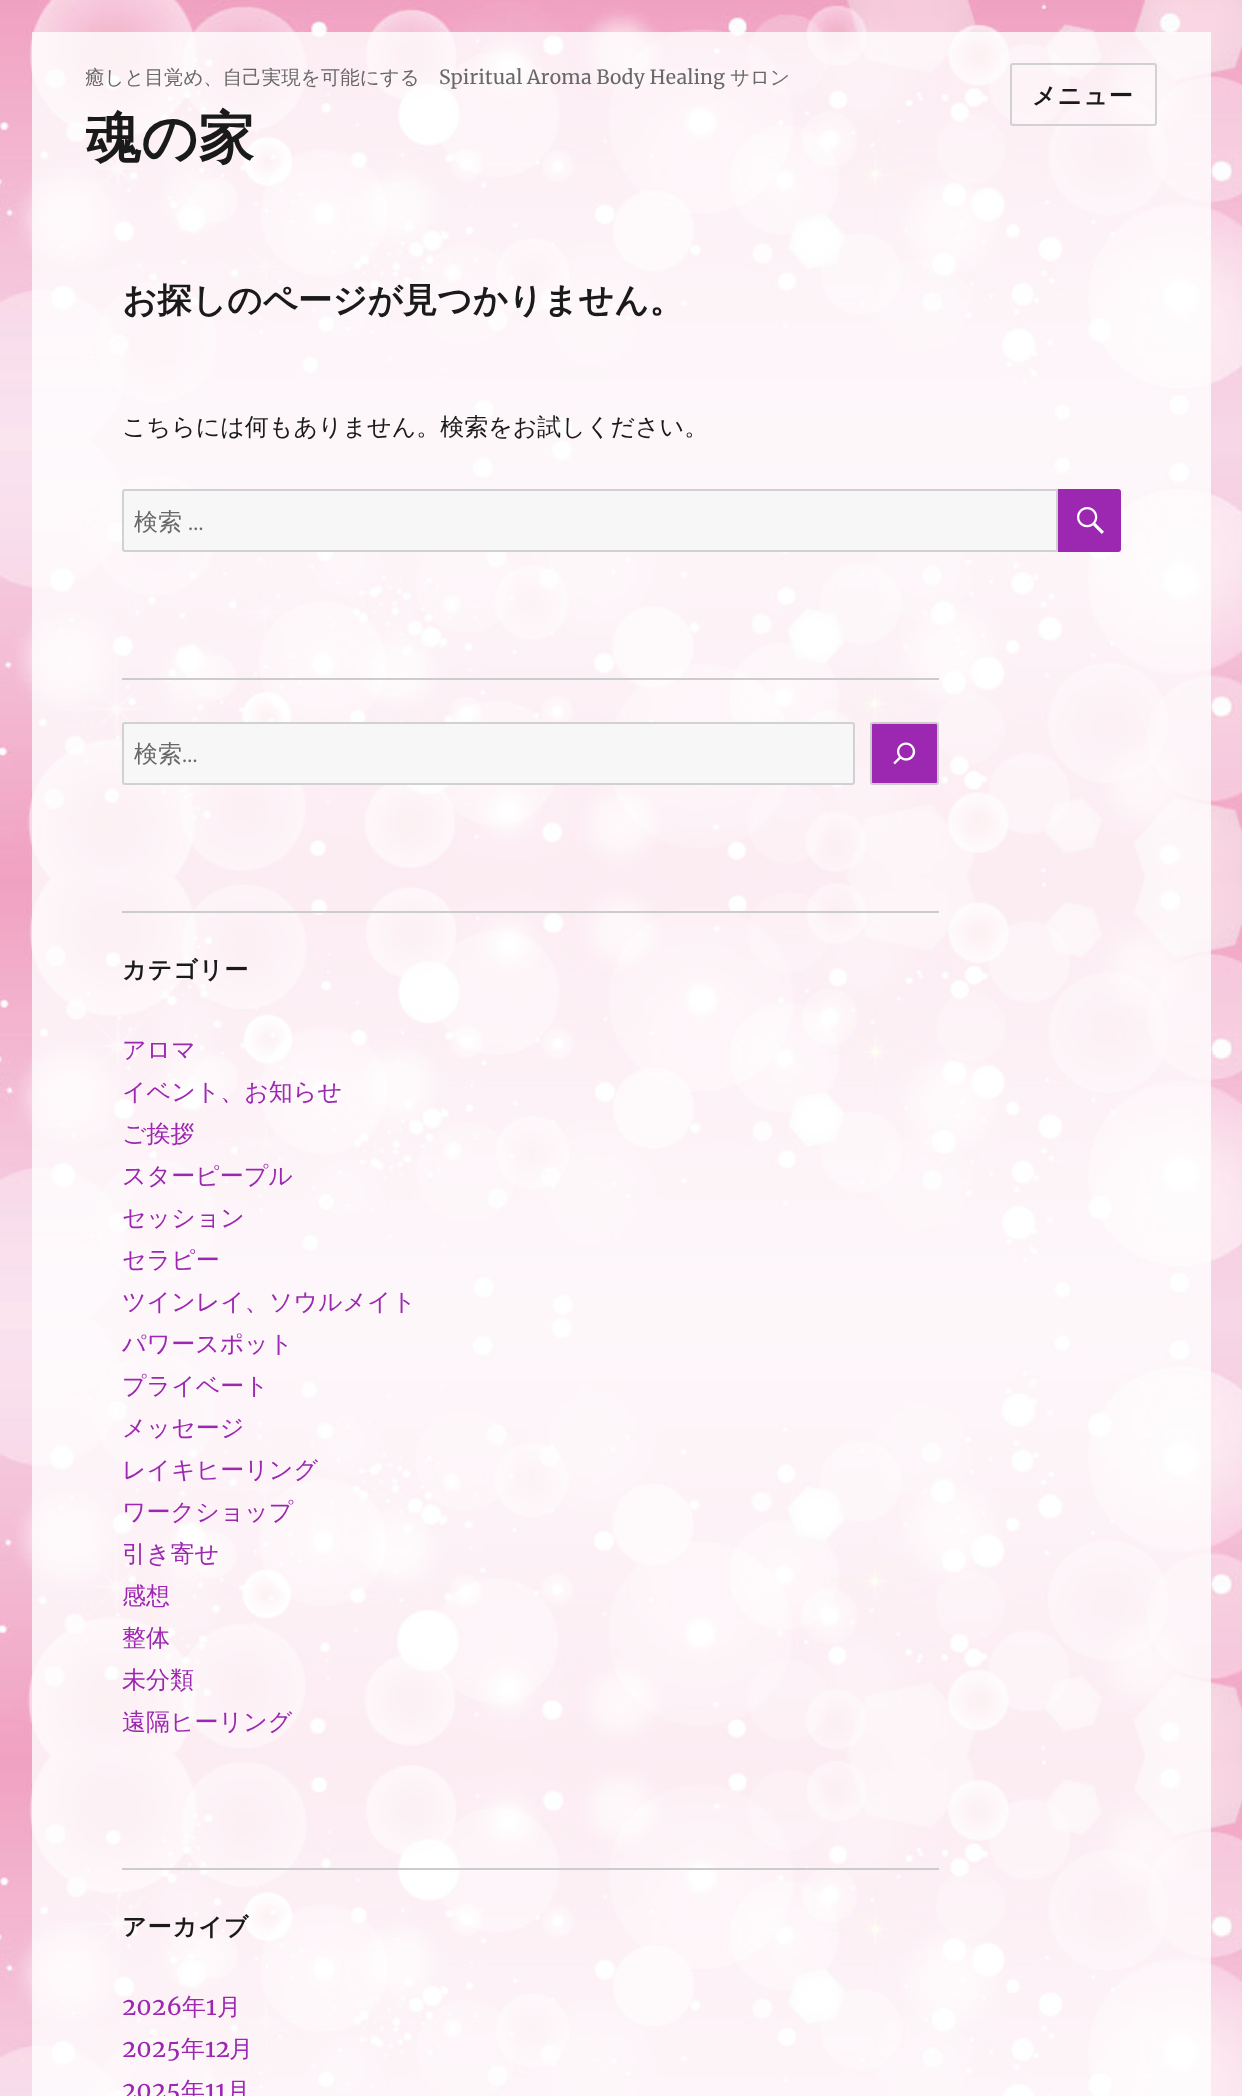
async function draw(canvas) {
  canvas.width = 1242
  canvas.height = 2096
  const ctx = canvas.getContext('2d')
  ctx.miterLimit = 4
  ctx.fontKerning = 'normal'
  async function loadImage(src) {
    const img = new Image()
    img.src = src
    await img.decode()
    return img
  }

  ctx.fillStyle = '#fff'
  ctx.fillRect(0, 0, 1242, 2096)
  ctx.drawImage(await loadImage('image0.png'), 0, 0, 1242, 2096)
  ctx.save()
  ctx.beginPath()
  ctx.rect(86, 63, 921, 110)
  ctx.clip()
  ctx.font = '500 19.5px WenQuanYi Zen Hei'
  ctx.fillStyle = '#686868'
  ctx.fillText('癒しと目覚め、自己実現を可能にする', 85, 84)
  ctx.restore()
  ctx.font = '19.5px Merriweather'
  ctx.fillStyle = '#686868'
  ctx.fillText('Spiritual Aroma Body Healing', 439, 84)
  ctx.font = '500 19.5px WenQuanYi Zen Hei'
  ctx.fillText('サロン', 730, 84)
  ctx.font = 'bold 56px WenQuanYi Zen Hei'
  ctx.fillStyle = '#1a1a1a'
  ctx.fillText('魂の家', 85, 157)
  ctx.beginPath()
  ctx.roundRect(1011, 64, 145, 61, 2)
  ctx.strokeStyle = '#d1d1d1'
  ctx.lineWidth = 2
  ctx.stroke()
  ctx.letterSpacing = '1px'
  ctx.font = 'bold 24px WenQuanYi Zen Hei'
  ctx.fillText('メニュー', 1032, 104)
  ctx.letterSpacing = '0px'
  ctx.font = 'bold 34.5px WenQuanYi Zen Hei'
  ctx.fillText('お探しのページが見つかりません。', 122, 312)
  ctx.font = '500 24px WenQuanYi Zen Hei'
  ctx.fillText('こちらには何もありません。検索をお試しください。', 122, 435)
  ctx.fillStyle = '#f7f7f7'
  ctx.beginPath()
  ctx.roundRect(123, 490, 934, 61, [2, 0, 0, 2])
  ctx.fill()
  ctx.stroke()
  ctx.fillStyle = '#686868'
  ctx.fillText('検索', 134, 530)
  ctx.font = '100 24px Montserrat'
  ctx.fillText('…', 188, 530)
  ctx.fillStyle = '#9c27b0'
  ctx.beginPath()
  ctx.roundRect(1058, 489, 63, 63, [0, 3, 3, 0])
  ctx.fill()
  ctx.drawImage(await loadImage('image1.png'), 1077, 507, 27, 27)
  ctx.fillStyle = '#ccc'
  ctx.fillRect(122, 678, 817, 2)
  ctx.fillStyle = '#f7f7f7'
  ctx.beginPath()
  ctx.roundRect(123, 723, 731, 61, 2)
  ctx.fill()
  ctx.stroke()
  ctx.font = '500 24px WenQuanYi Zen Hei'
  ctx.fillStyle = '#686868'
  ctx.fillText('検索', 134, 762)
  ctx.font = '100 24px Montserrat'
  ctx.fillText('…', 182, 762)
  ctx.fillStyle = '#9c27b0'
  ctx.beginPath()
  ctx.roundRect(871, 723, 67, 61, 2)
  ctx.fill()
  ctx.strokeStyle = '#ccc'
  ctx.stroke()
  ctx.drawImage(await loadImage('image2.png'), 893, 742, 23, 23)
  ctx.fillStyle = '#ccc'
  ctx.fillRect(122, 911, 817, 2)
  ctx.letterSpacing = '1px'
  ctx.font = 'bold 24px WenQuanYi Zen Hei'
  ctx.fillStyle = '#1a1a1a'
  ctx.fillText('カテゴリー', 122, 978)
  ctx.letterSpacing = '0px'
  ctx.font = '500 24px WenQuanYi Zen Hei'
  ctx.fillStyle = '#9c27b0'
  ctx.fillText('アロマ', 122, 1058)
  ctx.fillText('イベント、お知らせ', 122, 1100)
  ctx.fillText('ご挨拶', 122, 1142)
  ctx.fillText('スターピープル', 122, 1184)
  ctx.fillText('セッション', 122, 1226)
  ctx.fillText('セラピー', 122, 1268)
  ctx.fillText('ツインレイ、ソウルメイト', 122, 1310)
  ctx.fillText('パワースポット', 122, 1352)
  ctx.fillText('プライベート', 122, 1394)
  ctx.fillText('メッセージ', 122, 1436)
  ctx.fillText('レイキヒーリング', 122, 1478)
  ctx.fillText('ワークショップ', 122, 1520)
  ctx.fillText('引き寄せ', 122, 1562)
  ctx.fillText('感想', 122, 1604)
  ctx.fillText('整体', 122, 1646)
  ctx.fillText('未分類', 122, 1688)
  ctx.fillText('遠隔ヒーリング', 122, 1730)
  ctx.fillStyle = '#ccc'
  ctx.fillRect(122, 1868, 817, 2)
  ctx.letterSpacing = '1px'
  ctx.font = 'bold 24px WenQuanYi Zen Hei'
  ctx.fillStyle = '#1a1a1a'
  ctx.fillText('アーカイブ', 122, 1935)
  ctx.letterSpacing = '0px'
  ctx.font = '24px Merriweather'
  ctx.fillStyle = '#9c27b0'
  ctx.fillText('2026', 122, 2015)
  ctx.font = '500 24px WenQuanYi Zen Hei'
  ctx.fillText('年', 182, 2015)
  ctx.font = '24px Merriweather'
  ctx.fillText('1', 206, 2015)
  ctx.font = '500 24px WenQuanYi Zen Hei'
  ctx.fillText('月', 217, 2015)
  ctx.font = '24px Merriweather'
  ctx.fillText('2025', 122, 2057)
  ctx.font = '500 24px WenQuanYi Zen Hei'
  ctx.fillText('年', 181, 2057)
  ctx.font = '24px Merriweather'
  ctx.fillText('12', 205, 2057)
  ctx.font = '500 24px WenQuanYi Zen Hei'
  ctx.fillText('月', 229, 2057)
  ctx.font = '24px Merriweather'
  ctx.fillText('2025', 122, 2099)
  ctx.font = '500 24px WenQuanYi Zen Hei'
  ctx.fillText('年', 181, 2099)
  ctx.font = '24px Merriweather'
  ctx.fillText('11', 205, 2099)
  ctx.font = '500 24px WenQuanYi Zen Hei'
  ctx.fillText('月', 226, 2099)
}

draw(document.querySelector('canvas'))
